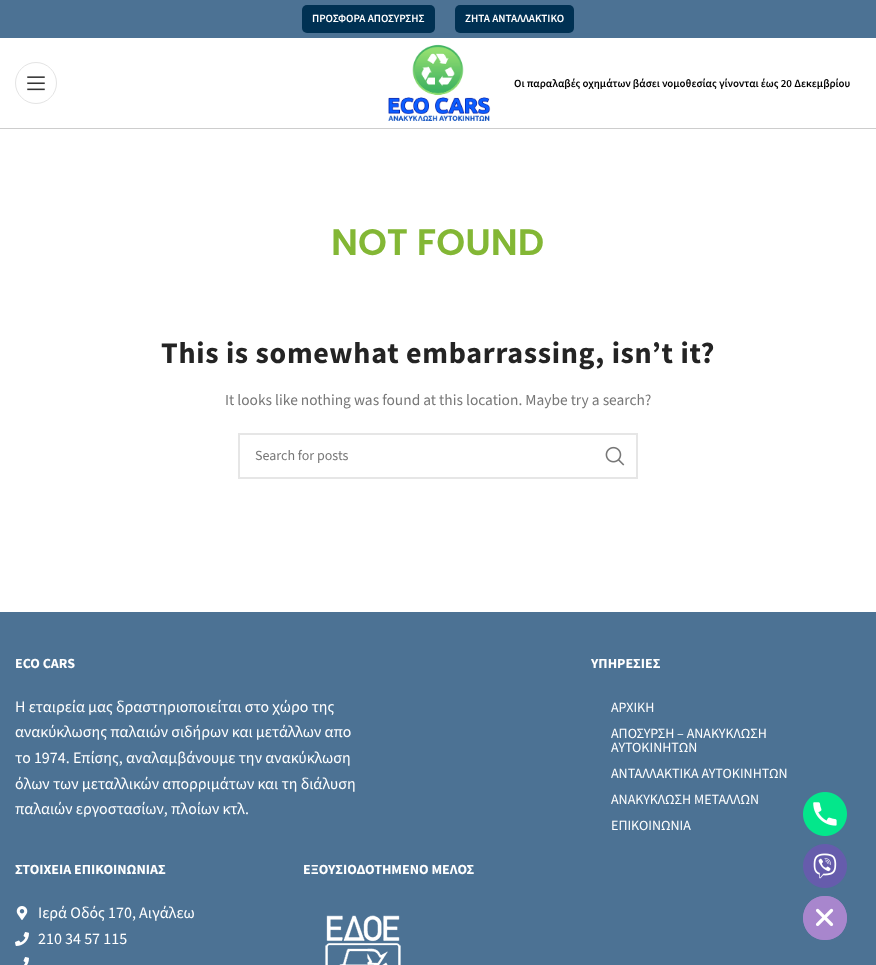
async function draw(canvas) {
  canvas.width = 876
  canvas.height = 965
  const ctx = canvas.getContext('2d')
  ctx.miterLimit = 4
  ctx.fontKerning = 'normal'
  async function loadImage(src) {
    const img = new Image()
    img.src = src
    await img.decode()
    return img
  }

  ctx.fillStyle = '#fff'
  ctx.fillRect(0, 0, 876, 965)
  ctx.fillStyle = '#4c7294'
  ctx.fillRect(0, 0, 876, 38)
  ctx.fillStyle = '#003153'
  ctx.beginPath()
  ctx.roundRect(302, 5, 133, 28, 5)
  ctx.fill()
  ctx.font = '600 11px "Source Sans 3"'
  ctx.fillStyle = '#fff'
  ctx.fillText('ΠΡΟΣΦΟΡΑ ΑΠΟΣΥΡΣΗΣ', 312, 22)
  ctx.fillStyle = '#003153'
  ctx.beginPath()
  ctx.roundRect(455, 5, 119, 28, 5)
  ctx.fill()
  ctx.fillStyle = '#fff'
  ctx.fillText('ΖΗΤΑ ΑΝΤΑΛΛΑΚΤΙΚΟ', 465, 22)
  ctx.fillStyle = '#cdcdcd'
  ctx.fillRect(0, 128, 876, 1)
  ctx.beginPath()
  ctx.arc(36, 83, 20.5, 0, 2 * Math.PI)
  ctx.strokeStyle = '#e4e4e4'
  ctx.stroke()
  ctx.drawImage(await loadImage('image0.png'), 27, 76, 18, 15)
  ctx.drawImage(await loadImage('image1.png'), 388, 44, 103, 77)
  ctx.fillStyle = '#000'
  ctx.fillText('Οι παραλαβές οχημάτων βάσει νομοθεσίας γίνονται έως 20 Δεκεμβρίου', 514, 87)
  ctx.font = '600 36.75px Poppins'
  ctx.fillStyle = '#83b735'
  ctx.fillText('NOT FOUND', 331, 255)
  ctx.letterSpacing = '0.7px'
  ctx.font = 'bold 30px Source Sans Pro'
  ctx.fillStyle = '#242424'
  ctx.fillText('This is somewhat embarrassing, isn’t it?', 161, 363)
  ctx.letterSpacing = '0px'
  ctx.font = '15.4px "Source Sans 3"'
  ctx.fillStyle = '#777'
  ctx.fillText('It looks like nothing was found at this location. Maybe try a search?', 225, 405)
  ctx.strokeStyle = '#e6e6e6'
  ctx.lineWidth = 2
  ctx.strokeRect(239, 434, 398, 44)
  ctx.font = '14px "Source Sans 3"'
  ctx.fillText('Search for posts', 255, 460)
  ctx.drawImage(await loadImage('image2.png'), 605, 446, 20, 20)
  ctx.fillStyle = '#4c7294'
  ctx.fillRect(0, 612, 876, 353)
  ctx.font = 'bold 14px Source Sans Pro'
  ctx.fillStyle = '#fff'
  ctx.fillText('ECO CARS', 15, 668)
  ctx.font = '16px Source Sans Pro'
  ctx.fillText('Η εταιρεία μας δραστηριοποιείται στο χώρο της', 15, 712)
  ctx.fillText('ανακύκλωσης παλαιών σιδήρων και μετάλλων απο', 15, 737)
  ctx.fillText('το 1974. Επίσης, αναλαμβάνουμε την ανακύκλωση', 15, 763)
  ctx.fillText('όλων των μεταλλικών απορριμάτων και τη διάλυση', 15, 789)
  ctx.fillText('παλαιών εργοστασίων, πλοίων κτλ.', 15, 814)
  ctx.font = 'bold 14px Source Sans Pro'
  ctx.fillText('ΥΠΗΡΕΣΙΕΣ', 591, 668)
  ctx.font = '14px Source Sans Pro'
  ctx.fillText('ΑΡΧΙΚΗ', 611, 712)
  ctx.fillText('ΑΠΟΣΥΡΣΗ – ΑΝΑΚΥΚΛΩΣΗ', 611, 738)
  ctx.fillText('ΑΥΤΟΚΙΝΗΤΩΝ', 611, 752)
  ctx.fillText('ΑΝΤΑΛΛΑΚΤΙΚΑ ΑΥΤΟΚΙΝΗΤΩΝ', 611, 778)
  ctx.fillText('ΑΝΑΚΥΚΛΩΣΗ ΜΕΤΑΛΛΩΝ', 611, 804)
  ctx.fillText('ΕΠΙΚΟΙΝΩΝΙΑ', 611, 830)
  ctx.font = 'bold 14px Source Sans Pro'
  ctx.fillText('ΣΤΟΙΧΕΙΑ ΕΠΙΚΟΙΝΩΝΙΑΣ', 15, 874)
  ctx.drawImage(await loadImage('image3.png'), 16, 906, 12, 14)
  ctx.font = '16px Source Sans Pro'
  ctx.fillText('Ιερά Οδός 170, Αιγάλεω', 38, 918)
  ctx.drawImage(await loadImage('image4.png'), 15, 932, 14, 14)
  ctx.fillText('210 34 57 115', 38, 944)
  ctx.drawImage(await loadImage('image5.png'), 23, 957, 6, 8)
  ctx.font = 'bold 14px Source Sans Pro'
  ctx.fillText('ΕΞΟΥΣΙΟΔΟΤΗΜΕΝΟ ΜΕΛΟΣ', 303, 874)
  ctx.drawImage(await loadImage('image6.png'), 325, 915, 76, 50)
  ctx.drawImage(await loadImage('image7.png'), 803, 792, 44, 44)
  ctx.drawImage(await loadImage('image8.png'), 803, 844, 44, 44)
  ctx.fillStyle = '#a886cd'
  ctx.beginPath()
  ctx.moveTo(825, 940)
  ctx.bezierCurveTo(796, 940, 796, 896, 825, 896)
  ctx.bezierCurveTo(854, 896, 854, 940, 825, 940)
  ctx.closePath()
  ctx.fill()
  ctx.drawImage(await loadImage('image9.png'), 803, 896, 44, 44)
}

draw(document.querySelector('canvas'))
